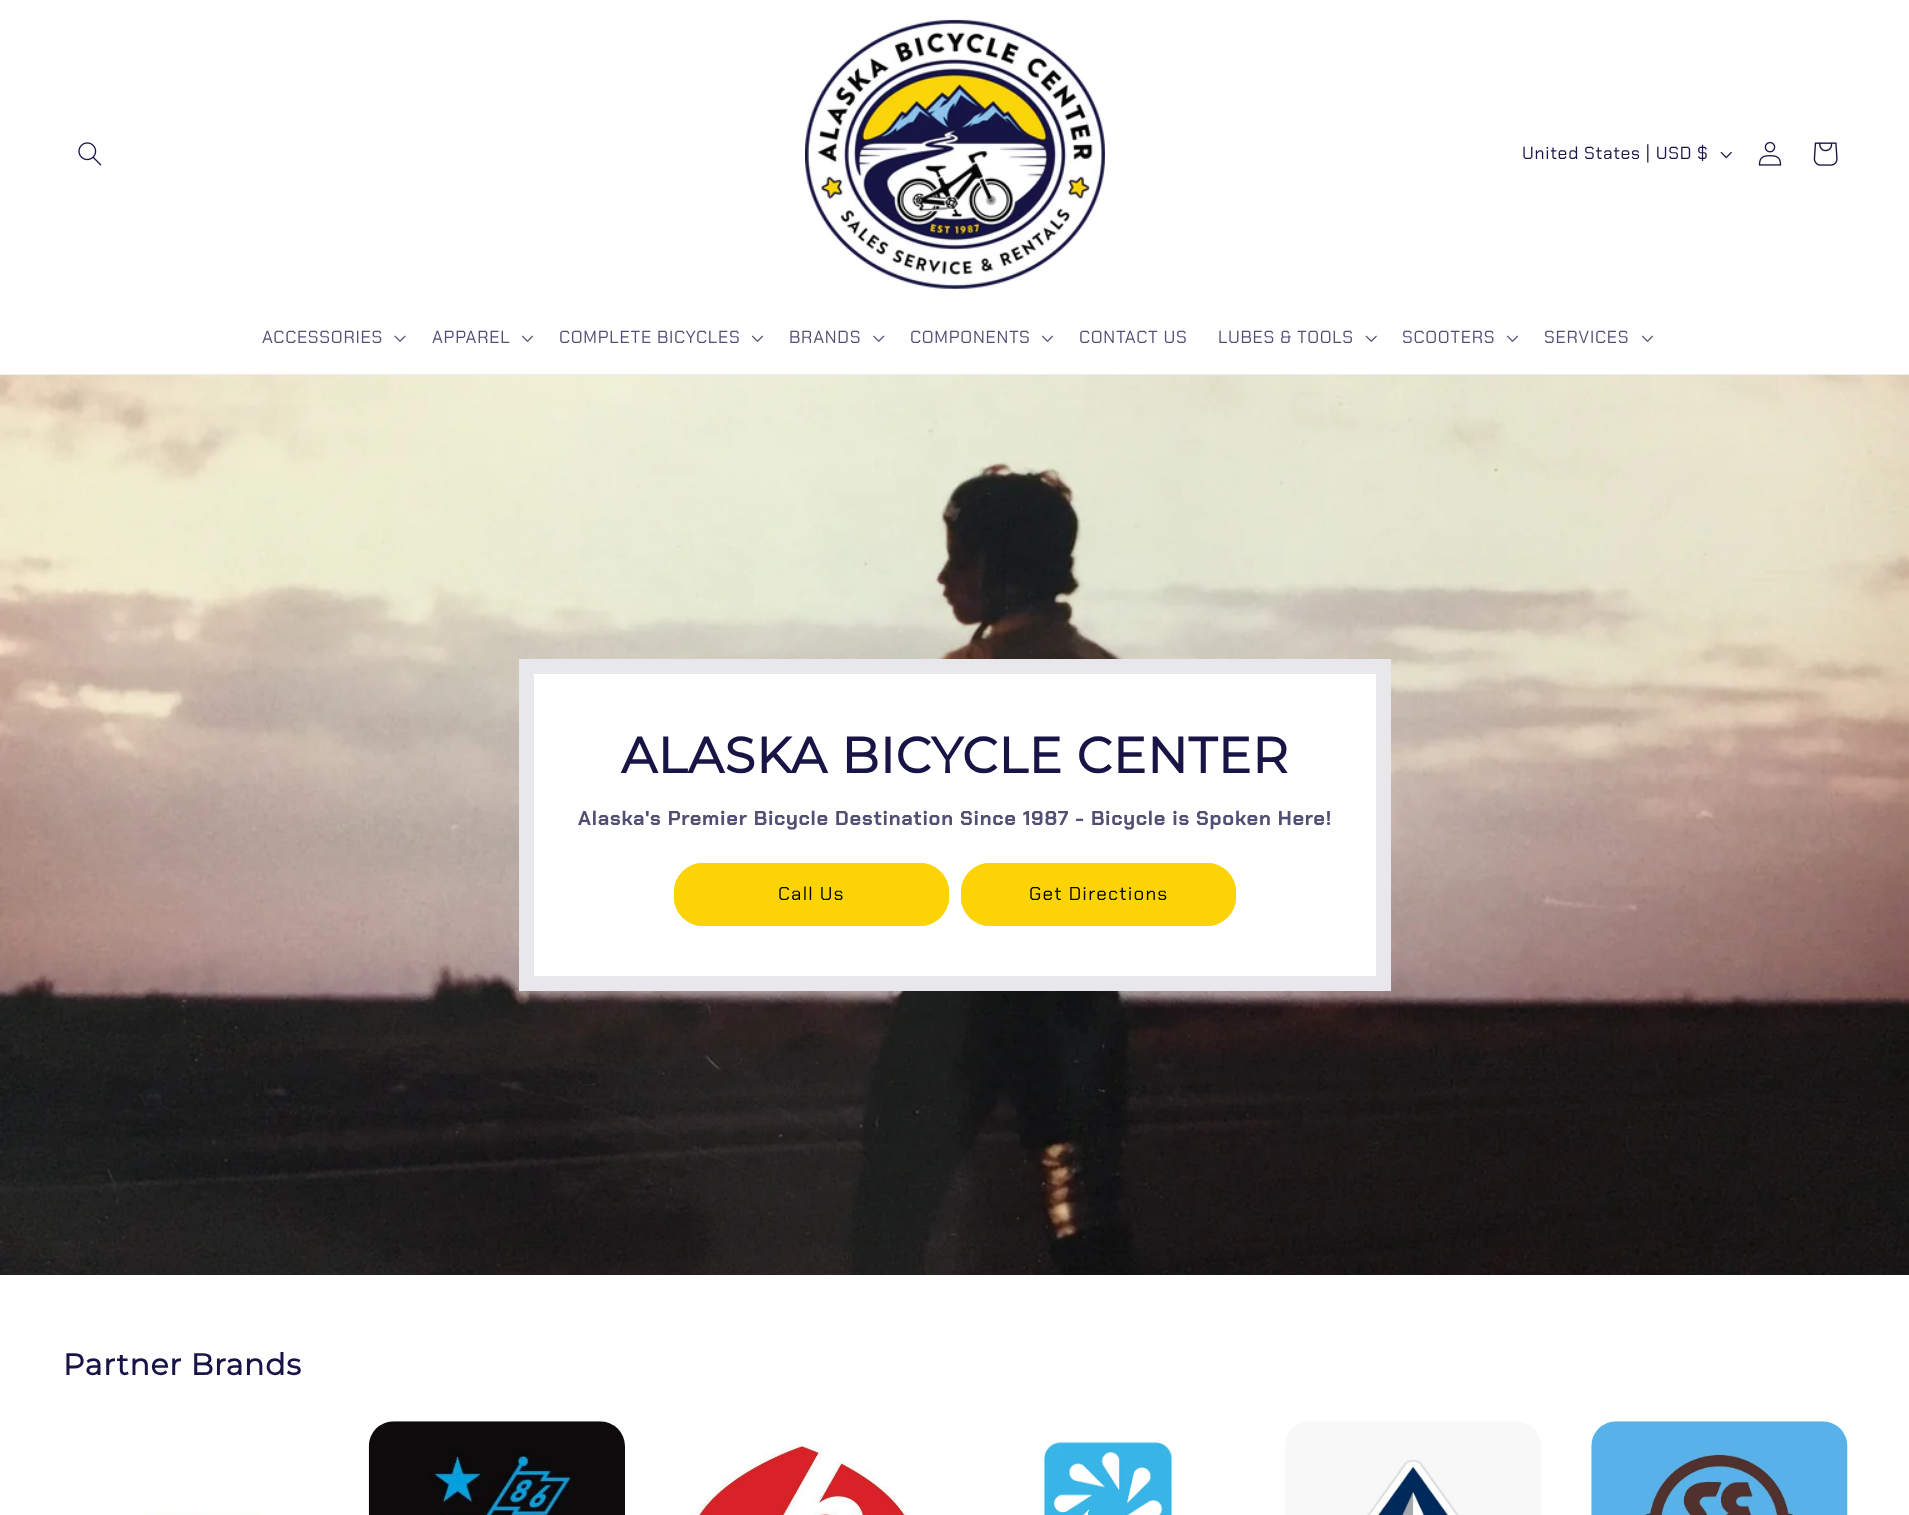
async function draw(canvas) {
  canvas.width = 1909
  canvas.height = 1515
  const ctx = canvas.getContext('2d')
  ctx.miterLimit = 4
  ctx.fontKerning = 'normal'
  async function loadImage(src) {
    const img = new Image()
    img.src = src
    await img.decode()
    return img
  }

  ctx.fillStyle = '#fff'
  ctx.fillRect(0, 0, 1909, 1515)
  ctx.fillStyle = '#edecf0'
  ctx.fillRect(0, 374, 1909, 1)
  ctx.drawImage(await loadImage('image0.png'), 78, 142, 24, 24)
  ctx.drawImage(await loadImage('image1.png'), 805, 19, 300, 270)
  ctx.letterSpacing = '0.75px'
  ctx.font = '17.5px Chakra Petch'
  ctx.fillStyle = '#181445'
  ctx.fillText('United States | USD $', 1522, 159)
  ctx.drawImage(await loadImage('image2.png'), 1720, 151, 12, 8)
  ctx.drawImage(await loadImage('image3.png'), 1758, 141, 24, 25)
  ctx.drawImage(await loadImage('image4.png'), 1813, 142, 25, 24)
  ctx.fillStyle = '#524f74'
  ctx.fillText('ACCESSORIES', 262, 343)
  ctx.drawImage(await loadImage('image5.png'), 394, 335, 12, 7)
  ctx.fillText('APPAREL', 432, 343)
  ctx.drawImage(await loadImage('image6.png'), 521, 335, 13, 7)
  ctx.fillText('COMPLETE BICYCLES', 559, 343)
  ctx.drawImage(await loadImage('image6.png'), 751, 335, 13, 7)
  ctx.fillText('BRANDS', 789, 343)
  ctx.drawImage(await loadImage('image7.png'), 873, 335, 12, 7)
  ctx.fillText('COMPONENTS', 910, 343)
  ctx.drawImage(await loadImage('image6.png'), 1041, 335, 13, 7)
  ctx.fillText('CONTACT US', 1079, 343)
  ctx.fillText('LUBES & TOOLS', 1218, 343)
  ctx.drawImage(await loadImage('image8.png'), 1365, 335, 12, 7)
  ctx.fillText('SCOOTERS', 1402, 343)
  ctx.drawImage(await loadImage('image6.png'), 1506, 335, 13, 7)
  ctx.fillText('SERVICES', 1544, 343)
  ctx.drawImage(await loadImage('image6.png'), 1641, 335, 13, 7)
  ctx.drawImage(await loadImage('image9.png'), 0, 375, 1909, 900)
  ctx.fillStyle = '#fff'
  ctx.beginPath()
  ctx.rect(526.5, 666.5, 857, 317)
  ctx.fill()
  ctx.strokeStyle = '#e8e8ec'
  ctx.lineWidth = 15
  ctx.stroke()
  ctx.font = 'bold 50px Montserrat'
  ctx.fillStyle = '#181445'
  ctx.fillText('ALASKA BICYCLE CENTER', 621, 773)
  ctx.font = 'bold 20px Chakra Petch'
  ctx.fillStyle = '#524f74'
  ctx.fillText('Alaska\'s Premier Bicycle Destination Since 1987 - Bicycle is Spoken Here!', 578, 825)
  ctx.fillStyle = '#fcd304'
  ctx.beginPath()
  ctx.roundRect(674, 863, 275, 63, 29)
  ctx.fill()
  ctx.beginPath()
  ctx.roundRect(676, 865, 271, 59, 27)
  ctx.strokeStyle = '#fcd304'
  ctx.lineWidth = 4
  ctx.stroke()
  ctx.letterSpacing = '1.25px'
  ctx.font = '18.75px Chakra Petch'
  ctx.fillStyle = '#000'
  ctx.fillText('Call Us', 778, 900)
  ctx.fillStyle = '#fcd304'
  ctx.beginPath()
  ctx.roundRect(961, 863, 275, 63, 29)
  ctx.fill()
  ctx.beginPath()
  ctx.roundRect(963, 865, 271, 59, 27)
  ctx.stroke()
  ctx.fillStyle = '#000'
  ctx.fillText('Get Directions', 1029, 900)
  ctx.letterSpacing = '0.75px'
  ctx.font = 'bold 30px Montserrat'
  ctx.fillStyle = '#181445'
  ctx.fillText('Partner Brands', 63, 1375)
  ctx.drawImage(await loadImage('image10.png'), 143, 1511, 117, 4)
  ctx.drawImage(await loadImage('image11.png'), 368, 1421, 257, 94)
  ctx.drawImage(await loadImage('image12.png'), 690, 1445, 222, 70)
  ctx.drawImage(await loadImage('image13.png'), 1044, 1440, 129, 75)
  ctx.drawImage(await loadImage('image14.png'), 1285, 1421, 256, 94)
  ctx.drawImage(await loadImage('image15.png'), 1591, 1421, 257, 94)
}

draw(document.querySelector('canvas'))
